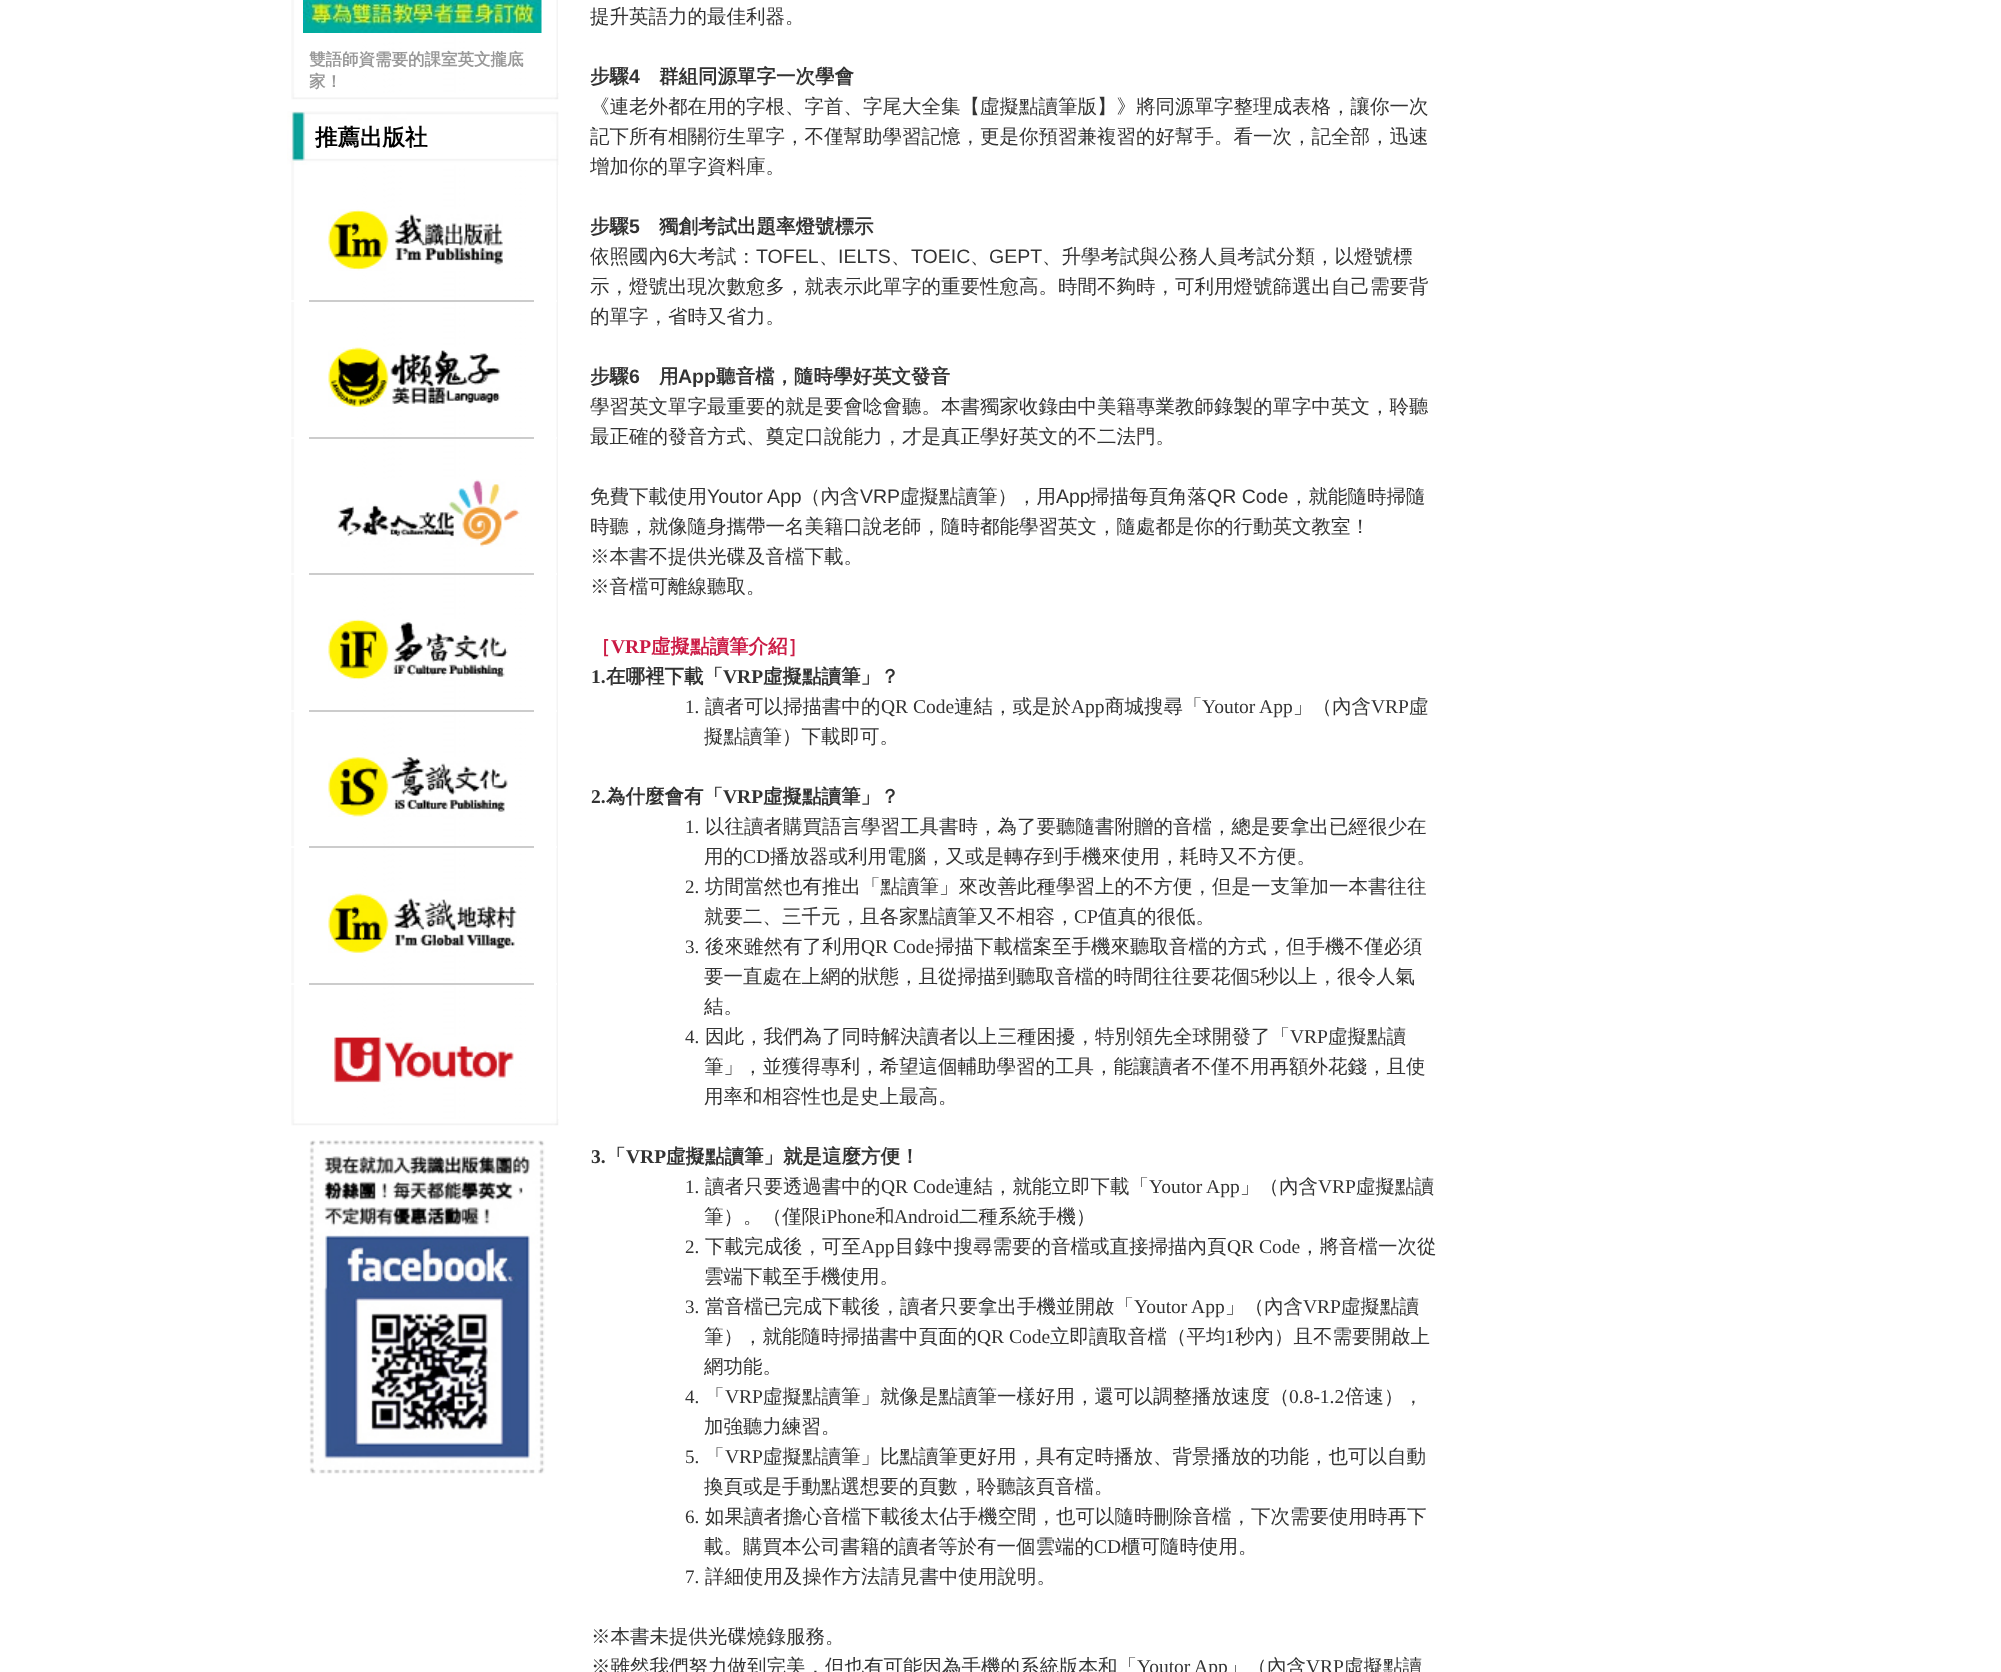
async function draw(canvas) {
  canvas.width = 2001
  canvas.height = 1672
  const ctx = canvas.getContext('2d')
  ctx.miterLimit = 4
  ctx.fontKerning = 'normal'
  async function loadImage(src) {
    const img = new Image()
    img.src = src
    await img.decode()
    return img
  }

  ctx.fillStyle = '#fff'
  ctx.fillRect(0, 0, 2001, 1672)
  ctx.drawImage(await loadImage('image0.png'), 291, 0, 267, 93)
  ctx.drawImage(await loadImage('image1.png'), 303, 0, 239, 33)
  ctx.font = 'bold 16.5px WenQuanYi Zen Hei'
  ctx.fillStyle = '#999'
  ctx.fillText('雙語師資需要的課室英文攏底', 309, 65)
  ctx.fillText('家！', 309, 87)
  ctx.drawImage(await loadImage('image2.png'), 291, 93, 268, 7)
  ctx.drawImage(await loadImage('image3.png'), 287, 111, 272, 54)
  ctx.font = 'bold 22.5px WenQuanYi Zen Hei'
  ctx.fillStyle = '#000'
  ctx.fillText('推薦出版社', 315, 145)
  ctx.drawImage(await loadImage('image4.png'), 291, 165, 267, 954)
  ctx.drawImage(await loadImage('image5.png'), 328, 209, 175, 62)
  ctx.fillStyle = '#fff'
  ctx.fillRect(287, 300, 270, 2)
  ctx.fillStyle = '#ccc'
  ctx.fillRect(309, 300, 225, 2)
  ctx.drawImage(await loadImage('image6.png'), 328, 347, 173, 60)
  ctx.fillStyle = '#fff'
  ctx.fillRect(287, 437, 270, 2)
  ctx.fillStyle = '#ccc'
  ctx.fillRect(309, 437, 225, 2)
  ctx.drawImage(await loadImage('image7.png'), 337, 479, 185, 68)
  ctx.fillStyle = '#fff'
  ctx.fillRect(287, 573, 270, 2)
  ctx.fillStyle = '#ccc'
  ctx.fillRect(309, 573, 225, 2)
  ctx.drawImage(await loadImage('image8.png'), 328, 619, 180, 61)
  ctx.fillStyle = '#fff'
  ctx.fillRect(287, 710, 270, 2)
  ctx.fillStyle = '#ccc'
  ctx.fillRect(309, 710, 225, 2)
  ctx.drawImage(await loadImage('image9.png'), 328, 757, 180, 60)
  ctx.fillStyle = '#fff'
  ctx.fillRect(287, 846, 270, 2)
  ctx.fillStyle = '#ccc'
  ctx.fillRect(309, 846, 225, 2)
  ctx.drawImage(await loadImage('image10.png'), 328, 893, 189, 60)
  ctx.fillStyle = '#fff'
  ctx.fillRect(287, 983, 270, 2)
  ctx.fillStyle = '#ccc'
  ctx.fillRect(309, 983, 225, 2)
  ctx.drawImage(await loadImage('image11.png'), 334, 1037, 180, 46)
  ctx.drawImage(await loadImage('image2.png'), 291, 1119, 268, 7)
  ctx.drawImage(await loadImage('image12.png'), 309, 1140, 236, 334)
  ctx.font = '500 19.5px WenQuanYi Zen Hei'
  ctx.fillStyle = '#333'
  ctx.fillText('提升英語力的最佳利器。', 590, 23)
  ctx.font = 'bold 19.5px WenQuanYi Zen Hei'
  ctx.fillText('步驟', 590, 83)
  ctx.font = 'bold 19.5px Liberation Sans'
  ctx.fillText('4', 629, 83)
  ctx.font = 'bold 19.5px WenQuanYi Zen Hei'
  ctx.fillText('群組同源單字一次學會', 659, 83)
  ctx.font = '500 19.5px WenQuanYi Zen Hei'
  ctx.fillText('《連老外都在用的字根、字首、字尾大全集【虛擬點讀筆版】》將同源單字整理成表格，讓你一次', 590, 113)
  ctx.fillText('記下所有相關衍生單字，不僅幫助學習記憶，更是你預習兼複習的好幫手。看一次，記全部，迅速', 590, 143)
  ctx.fillText('增加你的單字資料庫。', 590, 173)
  ctx.font = 'bold 19.5px WenQuanYi Zen Hei'
  ctx.fillText('步驟', 590, 233)
  ctx.font = 'bold 19.5px Liberation Sans'
  ctx.fillText('5', 629, 233)
  ctx.font = 'bold 19.5px WenQuanYi Zen Hei'
  ctx.fillText('獨創考試出題率燈號標示', 659, 233)
  ctx.font = '500 19.5px WenQuanYi Zen Hei'
  ctx.fillText('依照國內', 590, 263)
  ctx.font = '19.5px Liberation Sans'
  ctx.fillText('6', 668, 263)
  ctx.font = '500 19.5px WenQuanYi Zen Hei'
  ctx.fillText('大考試：', 678, 263)
  ctx.font = '19.5px Liberation Sans'
  ctx.fillText('TOFEL', 756, 263)
  ctx.font = '500 19.5px WenQuanYi Zen Hei'
  ctx.fillText('、', 819, 263)
  ctx.font = '19.5px Liberation Sans'
  ctx.fillText('IELTS', 838, 263)
  ctx.font = '500 19.5px WenQuanYi Zen Hei'
  ctx.fillText('、', 891, 263)
  ctx.font = '19.5px Liberation Sans'
  ctx.fillText('TOEIC', 911, 263)
  ctx.font = '500 19.5px WenQuanYi Zen Hei'
  ctx.fillText('、', 970, 263)
  ctx.font = '19.5px Liberation Sans'
  ctx.fillText('GEPT', 989, 263)
  ctx.font = '500 19.5px WenQuanYi Zen Hei'
  ctx.fillText('、升學考試與公務人員考試分類，以燈號標', 1042, 263)
  ctx.fillText('示，燈號出現次數愈多，就表示此單字的重要性愈高。時間不夠時，可利用燈號篩選出自己需要背', 590, 293)
  ctx.fillText('的單字，省時又省力。', 590, 323)
  ctx.font = 'bold 19.5px WenQuanYi Zen Hei'
  ctx.fillText('步驟', 590, 383)
  ctx.font = 'bold 19.5px Liberation Sans'
  ctx.fillText('6', 629, 383)
  ctx.font = 'bold 19.5px WenQuanYi Zen Hei'
  ctx.fillText('用', 659, 383)
  ctx.font = 'bold 19.5px Liberation Sans'
  ctx.fillText('App', 678, 383)
  ctx.font = 'bold 19.5px WenQuanYi Zen Hei'
  ctx.fillText('聽音檔，隨時學好英文發音', 716, 383)
  ctx.font = '500 19.5px WenQuanYi Zen Hei'
  ctx.fillText('學習英文單字最重要的就是要會唸會聽。本書獨家收錄由中美籍專業教師錄製的單字中英文，聆聽', 590, 413)
  ctx.fillText('最正確的發音方式、奠定口說能力，才是真正學好英文的不二法門。', 590, 443)
  ctx.fillText('免費下載使用', 590, 503)
  ctx.font = '19.5px Liberation Sans'
  ctx.fillText('Youtor App', 707, 503)
  ctx.font = '500 19.5px WenQuanYi Zen Hei'
  ctx.fillText('（內含', 801, 503)
  ctx.font = '19.5px Liberation Sans'
  ctx.fillText('VRP', 860, 503)
  ctx.font = '500 19.5px WenQuanYi Zen Hei'
  ctx.fillText('虛擬點讀筆），用', 900, 503)
  ctx.font = '19.5px Liberation Sans'
  ctx.fillText('App', 1056, 503)
  ctx.font = '500 19.5px WenQuanYi Zen Hei'
  ctx.fillText('掃描每頁角落', 1090, 503)
  ctx.font = '19.5px Liberation Sans'
  ctx.fillText('QR Code', 1207, 503)
  ctx.font = '500 19.5px WenQuanYi Zen Hei'
  ctx.fillText('，就能隨時掃隨', 1289, 503)
  ctx.fillText('時聽，就像隨身攜帶一名美籍口說老師，隨時都能學習英文，隨處都是你的行動英文教室！', 590, 533)
  ctx.fillText('※本書不提供光碟及音檔下載。', 590, 563)
  ctx.fillText('※音檔可離線聽取。', 590, 593)
  ctx.font = 'bold 19.5px WenQuanYi Zen Hei'
  ctx.fillStyle = '#cb1b45'
  ctx.fillText('［', 591, 653)
  ctx.font = 'bold 19.5px Liberation Serif'
  ctx.fillText('VRP', 611, 653)
  ctx.font = 'bold 19.5px WenQuanYi Zen Hei'
  ctx.fillText('虛擬點讀筆介紹］', 651, 653)
  ctx.font = 'bold 19.5px Liberation Serif'
  ctx.fillStyle = '#333'
  ctx.fillText('1.', 591, 683)
  ctx.font = 'bold 19.5px WenQuanYi Zen Hei'
  ctx.fillText('在哪裡下載「', 606, 683)
  ctx.font = 'bold 19.5px Liberation Serif'
  ctx.fillText('VRP', 723, 683)
  ctx.font = 'bold 19.5px WenQuanYi Zen Hei'
  ctx.fillText('虛擬點讀筆」？', 763, 683)
  ctx.font = '19px Liberation Serif'
  ctx.fillText('1.', 685, 713)
  ctx.font = '500 19.5px WenQuanYi Zen Hei'
  ctx.fillText('讀者可以掃描書中的', 705, 713)
  ctx.font = '19.5px Liberation Serif'
  ctx.fillText('QR Code', 881, 713)
  ctx.font = '500 19.5px WenQuanYi Zen Hei'
  ctx.fillText('連結，或是於', 954, 713)
  ctx.font = '19.5px Liberation Serif'
  ctx.fillText('App', 1071, 713)
  ctx.font = '500 19.5px WenQuanYi Zen Hei'
  ctx.fillText('商城搜尋「', 1105, 713)
  ctx.font = '19.5px Liberation Serif'
  ctx.fillText('Youtor App', 1202, 713)
  ctx.font = '500 19.5px WenQuanYi Zen Hei'
  ctx.fillText('」（內含', 1293, 713)
  ctx.font = '19.5px Liberation Serif'
  ctx.fillText('VRP', 1371, 713)
  ctx.font = '500 19.5px WenQuanYi Zen Hei'
  ctx.fillText('虛', 1409, 713)
  ctx.fillText('擬點讀筆）下載即可。', 704, 743)
  ctx.font = 'bold 19.5px Liberation Serif'
  ctx.fillText('2.', 591, 803)
  ctx.font = 'bold 19.5px WenQuanYi Zen Hei'
  ctx.fillText('為什麼會有「', 606, 803)
  ctx.font = 'bold 19.5px Liberation Serif'
  ctx.fillText('VRP', 723, 803)
  ctx.font = 'bold 19.5px WenQuanYi Zen Hei'
  ctx.fillText('虛擬點讀筆」？', 763, 803)
  ctx.font = '19px Liberation Serif'
  ctx.fillText('1.', 685, 833)
  ctx.font = '500 19.5px WenQuanYi Zen Hei'
  ctx.fillText('以往讀者購買語言學習工具書時，為了要聽隨書附贈的音檔，總是要拿出已經很少在', 705, 833)
  ctx.fillText('用的', 704, 863)
  ctx.font = '19.5px Liberation Serif'
  ctx.fillText('CD', 743, 863)
  ctx.font = '500 19.5px WenQuanYi Zen Hei'
  ctx.fillText('播放器或利用電腦，又或是轉存到手機來使用，耗時又不方便。', 770, 863)
  ctx.font = '19px Liberation Serif'
  ctx.fillText('2.', 685, 893)
  ctx.font = '500 19.5px WenQuanYi Zen Hei'
  ctx.fillText('坊間當然也有推出「點讀筆」來改善此種學習上的不方便，但是一支筆加一本書往往', 705, 893)
  ctx.fillText('就要二、三千元，且各家點讀筆又不相容，', 704, 923)
  ctx.font = '19.5px Liberation Serif'
  ctx.fillText('CP', 1074, 923)
  ctx.font = '500 19.5px WenQuanYi Zen Hei'
  ctx.fillText('值真的很低。', 1098, 923)
  ctx.font = '19px Liberation Serif'
  ctx.fillText('3.', 685, 953)
  ctx.font = '500 19.5px WenQuanYi Zen Hei'
  ctx.fillText('後來雖然有了利用', 705, 953)
  ctx.font = '19.5px Liberation Serif'
  ctx.fillText('QR Code', 861, 953)
  ctx.font = '500 19.5px WenQuanYi Zen Hei'
  ctx.fillText('掃描下載檔案至手機來聽取音檔的方式，但手機不僅必須', 935, 953)
  ctx.fillText('要一直處在上網的狀態，且從掃描到聽取音檔的時間往往要花個', 704, 983)
  ctx.font = '19.5px Liberation Serif'
  ctx.fillText('5', 1250, 983)
  ctx.font = '500 19.5px WenQuanYi Zen Hei'
  ctx.fillText('秒以上，很令人氣', 1259, 983)
  ctx.fillText('結。', 704, 1013)
  ctx.font = '19px Liberation Serif'
  ctx.fillText('4.', 685, 1043)
  ctx.font = '500 19.5px WenQuanYi Zen Hei'
  ctx.fillText('因此，我們為了同時解決讀者以上三種困擾，特別領先全球開發了「', 705, 1043)
  ctx.font = '19.5px Liberation Serif'
  ctx.fillText('VRP', 1290, 1043)
  ctx.font = '500 19.5px WenQuanYi Zen Hei'
  ctx.fillText('虛擬點讀', 1328, 1043)
  ctx.fillText('筆」，並獲得專利，希望這個輔助學習的工具，能讓讀者不僅不用再額外花錢，且使', 704, 1073)
  ctx.fillText('用率和相容性也是史上最高。', 704, 1103)
  ctx.font = 'bold 19.5px Liberation Serif'
  ctx.fillText('3.', 591, 1163)
  ctx.font = 'bold 19.5px WenQuanYi Zen Hei'
  ctx.fillText('「', 606, 1163)
  ctx.font = 'bold 19.5px Liberation Serif'
  ctx.fillText('VRP', 626, 1163)
  ctx.font = 'bold 19.5px WenQuanYi Zen Hei'
  ctx.fillText('虛擬點讀筆」就是這麼方便！', 666, 1163)
  ctx.font = '19px Liberation Serif'
  ctx.fillText('1.', 685, 1193)
  ctx.font = '500 19.5px WenQuanYi Zen Hei'
  ctx.fillText('讀者只要透過書中的', 705, 1193)
  ctx.font = '19.5px Liberation Serif'
  ctx.fillText('QR Code', 881, 1193)
  ctx.font = '500 19.5px WenQuanYi Zen Hei'
  ctx.fillText('連結，就能立即下載「', 954, 1193)
  ctx.font = '19.5px Liberation Serif'
  ctx.fillText('Youtor App', 1149, 1193)
  ctx.font = '500 19.5px WenQuanYi Zen Hei'
  ctx.fillText('」（內含', 1240, 1193)
  ctx.font = '19.5px Liberation Serif'
  ctx.fillText('VRP', 1318, 1193)
  ctx.font = '500 19.5px WenQuanYi Zen Hei'
  ctx.fillText('虛擬點讀', 1356, 1193)
  ctx.fillText('筆）。（僅限', 704, 1223)
  ctx.font = '19.5px Liberation Serif'
  ctx.fillText('iPhone', 821, 1223)
  ctx.font = '500 19.5px WenQuanYi Zen Hei'
  ctx.fillText('和', 875, 1223)
  ctx.font = '19.5px Liberation Serif'
  ctx.fillText('Android', 894, 1223)
  ctx.font = '500 19.5px WenQuanYi Zen Hei'
  ctx.fillText('二種系統手機）', 959, 1223)
  ctx.font = '19px Liberation Serif'
  ctx.fillText('2.', 685, 1253)
  ctx.font = '500 19.5px WenQuanYi Zen Hei'
  ctx.fillText('下載完成後，可至', 705, 1253)
  ctx.font = '19.5px Liberation Serif'
  ctx.fillText('App', 861, 1253)
  ctx.font = '500 19.5px WenQuanYi Zen Hei'
  ctx.fillText('目錄中搜尋需要的音檔或直接掃描內頁', 895, 1253)
  ctx.font = '19.5px Liberation Serif'
  ctx.fillText('QR Code', 1227, 1253)
  ctx.font = '500 19.5px WenQuanYi Zen Hei'
  ctx.fillText('，將音檔一次從', 1300, 1253)
  ctx.fillText('雲端下載至手機使用。', 704, 1283)
  ctx.font = '19px Liberation Serif'
  ctx.fillText('3.', 685, 1313)
  ctx.font = '500 19.5px WenQuanYi Zen Hei'
  ctx.fillText('當音檔已完成下載後，讀者只要拿出手機並開啟「', 705, 1313)
  ctx.font = '19.5px Liberation Serif'
  ctx.fillText('Youtor App', 1134, 1313)
  ctx.font = '500 19.5px WenQuanYi Zen Hei'
  ctx.fillText('」（內含', 1225, 1313)
  ctx.font = '19.5px Liberation Serif'
  ctx.fillText('VRP', 1303, 1313)
  ctx.font = '500 19.5px WenQuanYi Zen Hei'
  ctx.fillText('虛擬點讀', 1341, 1313)
  ctx.fillText('筆），就能隨時掃描書中頁面的', 704, 1343)
  ctx.font = '19.5px Liberation Serif'
  ctx.fillText('QR Code', 977, 1343)
  ctx.font = '500 19.5px WenQuanYi Zen Hei'
  ctx.fillText('立即讀取音檔（平均', 1050, 1343)
  ctx.font = '19.5px Liberation Serif'
  ctx.fillText('1', 1225, 1343)
  ctx.font = '500 19.5px WenQuanYi Zen Hei'
  ctx.fillText('秒內）且不需要開啟上', 1235, 1343)
  ctx.fillText('網功能。', 704, 1373)
  ctx.font = '19px Liberation Serif'
  ctx.fillText('4.', 685, 1403)
  ctx.font = '500 19.5px WenQuanYi Zen Hei'
  ctx.fillText('「', 705, 1403)
  ctx.font = '19.5px Liberation Serif'
  ctx.fillText('VRP', 725, 1403)
  ctx.font = '500 19.5px WenQuanYi Zen Hei'
  ctx.fillText('虛擬點讀筆」就像是點讀筆一樣好用，還可以調整播放速度（', 763, 1403)
  ctx.font = '19.5px Liberation Serif'
  ctx.fillText('0.8-1.2', 1289, 1403)
  ctx.font = '500 19.5px WenQuanYi Zen Hei'
  ctx.fillText('倍速），', 1345, 1403)
  ctx.fillText('加強聽力練習。', 704, 1433)
  ctx.font = '19px Liberation Serif'
  ctx.fillText('5.', 685, 1463)
  ctx.font = '500 19.5px WenQuanYi Zen Hei'
  ctx.fillText('「', 705, 1463)
  ctx.font = '19.5px Liberation Serif'
  ctx.fillText('VRP', 725, 1463)
  ctx.font = '500 19.5px WenQuanYi Zen Hei'
  ctx.fillText('虛擬點讀筆」比點讀筆更好用，具有定時播放、背景播放的功能，也可以自動', 763, 1463)
  ctx.fillText('換頁或是手動點選想要的頁數，聆聽該頁音檔。', 704, 1493)
  ctx.font = '19px Liberation Serif'
  ctx.fillText('6.', 685, 1523)
  ctx.font = '500 19.5px WenQuanYi Zen Hei'
  ctx.fillText('如果讀者擔心音檔下載後太佔手機空間，也可以隨時刪除音檔，下次需要使用時再下', 705, 1523)
  ctx.fillText('載。購買本公司書籍的讀者等於有一個雲端的', 704, 1553)
  ctx.font = '19.5px Liberation Serif'
  ctx.fillText('CD', 1094, 1553)
  ctx.font = '500 19.5px WenQuanYi Zen Hei'
  ctx.fillText('櫃可隨時使用。', 1121, 1553)
  ctx.font = '19px Liberation Serif'
  ctx.fillText('7.', 685, 1583)
  ctx.font = '500 19.5px WenQuanYi Zen Hei'
  ctx.fillText('詳細使用及操作方法請見書中使用說明。', 705, 1583)
  ctx.fillText('※本書未提供光碟燒錄服務。', 591, 1643)
  ctx.fillText('※雖然我們努力做到完美，但也有可能因為手機的系統版本和「', 591, 1673)
  ctx.font = '19.5px Liberation Serif'
  ctx.fillText('Youtor App', 1137, 1673)
  ctx.font = '500 19.5px WenQuanYi Zen Hei'
  ctx.fillText('」（內含', 1228, 1673)
  ctx.font = '19.5px Liberation Serif'
  ctx.fillText('VRP', 1306, 1673)
  ctx.font = '500 19.5px WenQuanYi Zen Hei'
  ctx.fillText('虛擬點讀', 1344, 1673)
}

draw(document.querySelector('canvas'))
